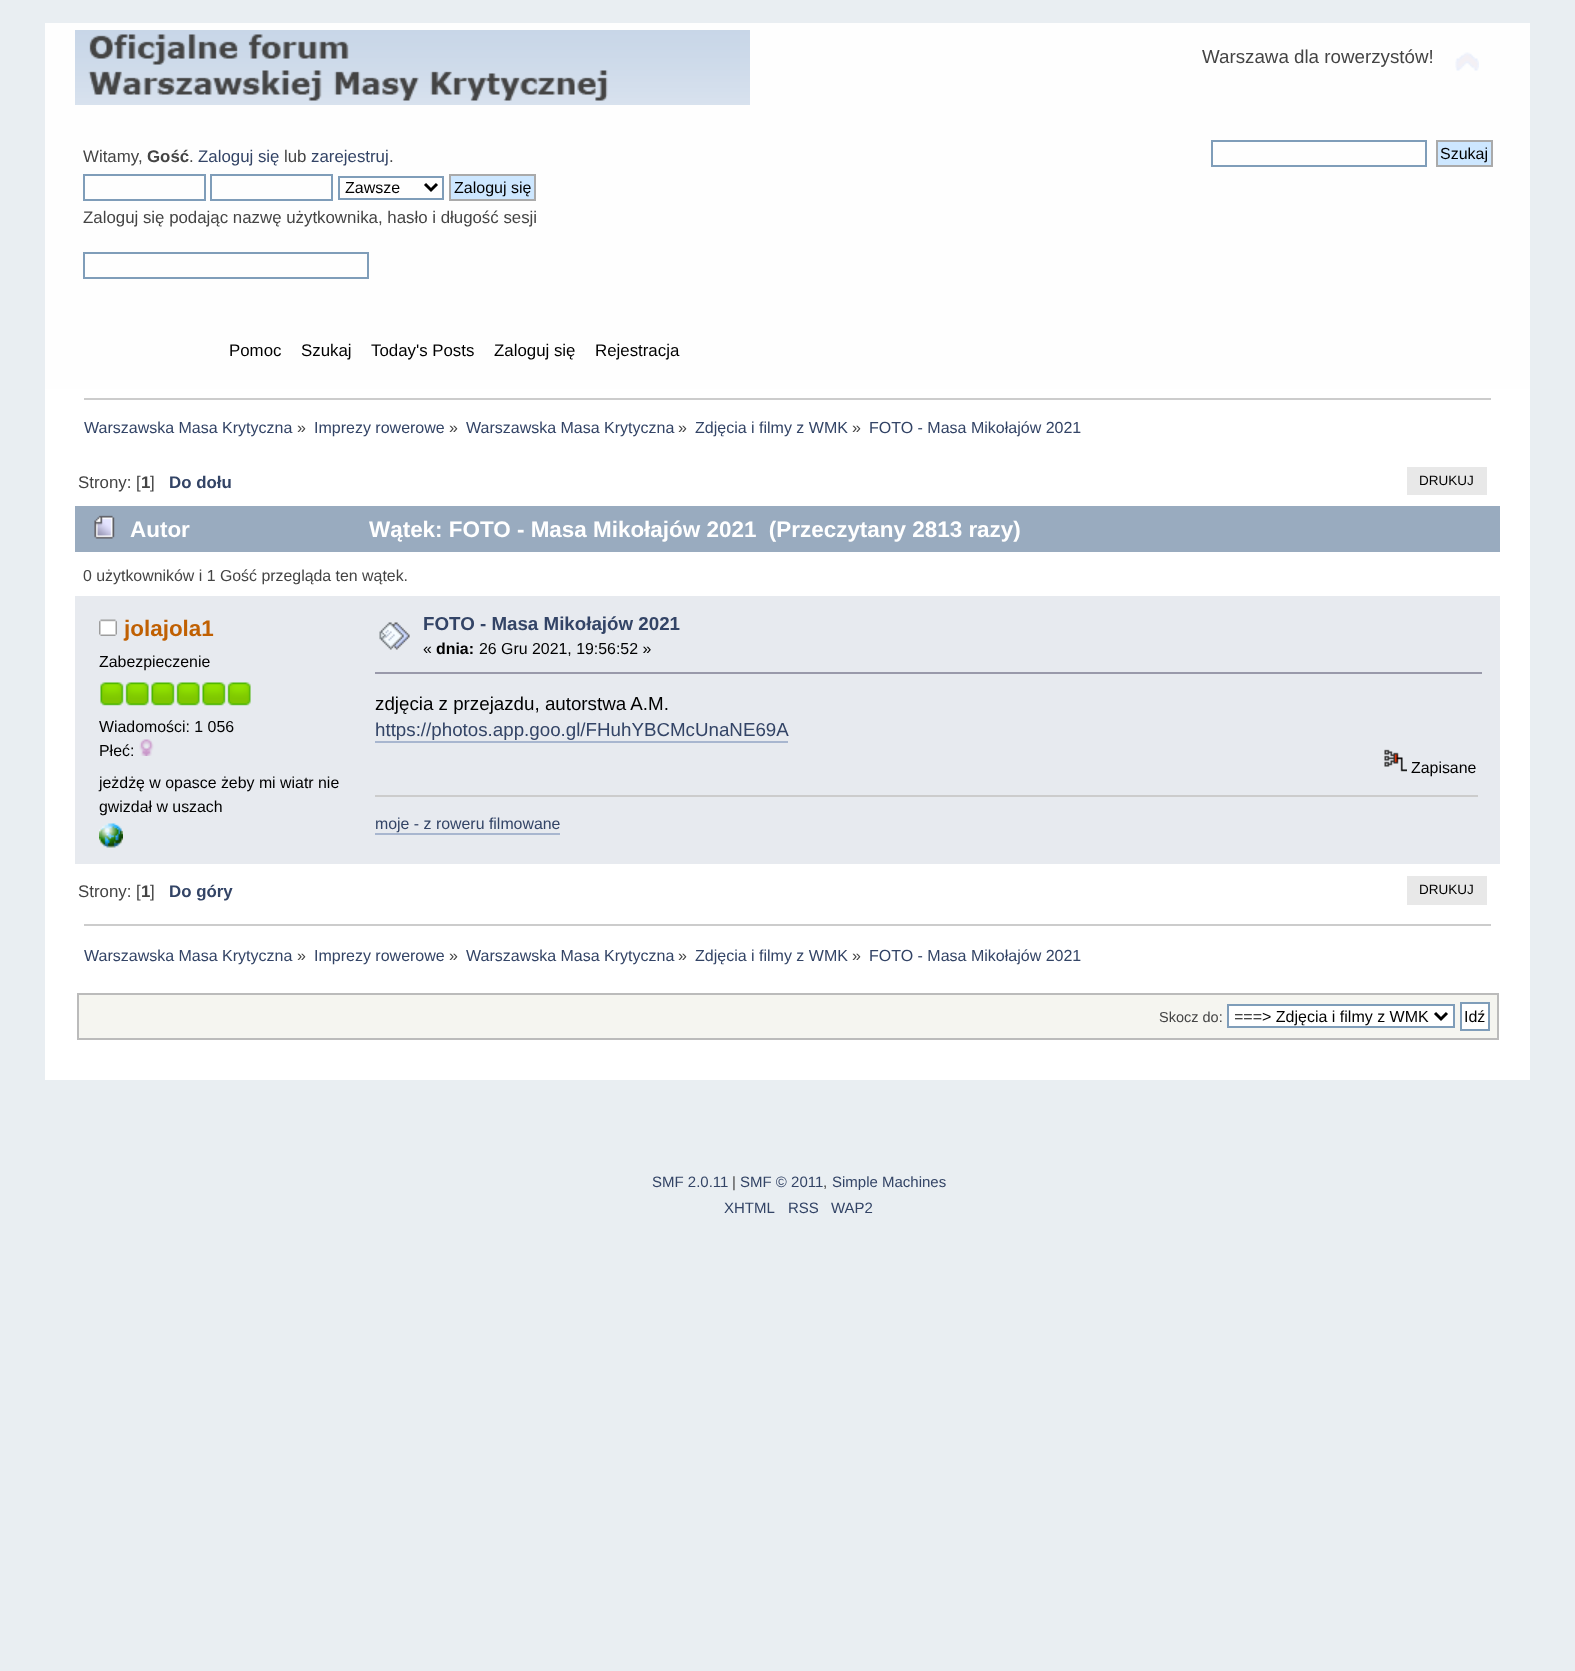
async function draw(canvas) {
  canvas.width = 1575
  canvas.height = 1671
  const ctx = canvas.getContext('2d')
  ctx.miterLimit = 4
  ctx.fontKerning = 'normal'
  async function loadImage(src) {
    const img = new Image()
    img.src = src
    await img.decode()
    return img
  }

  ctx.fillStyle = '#e9eef2'
  ctx.fillRect(0, 0, 1575, 1671)
  ctx.fillStyle = '#fefefe'
  ctx.fillRect(45, 23, 1485, 366)
  ctx.drawImage(await loadImage('image0.png'), 75, 30, 675, 75)
  ctx.font = '18.75px Liberation Sans'
  ctx.fillStyle = '#444'
  ctx.fillText('Warszawa dla rowerzystów!', 1202, 63)
  ctx.drawImage(await loadImage('image1.png'), 1455, 52, 24, 19)
  ctx.font = '16.85px Liberation Sans'
  ctx.fillText('Witamy,', 83, 162)
  ctx.font = 'bold 16.85px Liberation Sans'
  ctx.fillText('Gość', 147, 162)
  ctx.font = '16.85px Liberation Sans'
  ctx.fillText('.', 189, 162)
  ctx.fillStyle = '#346'
  ctx.fillText('Zaloguj się', 198, 162)
  ctx.fillStyle = '#444'
  ctx.fillText('lub', 284, 162)
  ctx.fillStyle = '#346'
  ctx.fillText('zarejestruj', 311, 162)
  ctx.fillStyle = '#444'
  ctx.fillText('.', 389, 162)
  ctx.strokeStyle = '#7f9db9'
  ctx.lineWidth = 2
  ctx.strokeRect(84, 175, 121, 25)
  ctx.strokeRect(211, 175, 121, 25)
  ctx.strokeRect(339, 177, 104, 22)
  ctx.beginPath()
  ctx.moveTo(425, 184)
  ctx.lineTo(431, 190)
  ctx.lineTo(437, 184)
  ctx.strokeStyle = '#000'
  ctx.lineWidth = 3
  ctx.stroke()
  ctx.font = '16px Liberation Sans'
  ctx.fillStyle = '#000'
  ctx.fillText('Zawsze', 345, 193)
  ctx.fillStyle = '#cde7ff'
  ctx.beginPath()
  ctx.rect(450, 175, 85, 25)
  ctx.fill()
  ctx.strokeStyle = '#aaa'
  ctx.lineWidth = 2
  ctx.stroke()
  ctx.fillStyle = '#000'
  ctx.fillText('Zaloguj się', 454, 193)
  ctx.font = '16.85px Liberation Sans'
  ctx.fillStyle = '#444'
  ctx.fillText('Zaloguj się podając nazwę użytkownika, hasło i długość sesji', 83, 223)
  ctx.strokeStyle = '#7f9db9'
  ctx.strokeRect(84, 253, 284, 25)
  ctx.strokeRect(1212, 141, 214, 25)
  ctx.fillStyle = '#cde7ff'
  ctx.beginPath()
  ctx.rect(1437, 141, 55, 25)
  ctx.fill()
  ctx.strokeStyle = '#aaa'
  ctx.stroke()
  ctx.font = '16px Liberation Sans'
  ctx.fillStyle = '#000'
  ctx.fillText('Szukaj', 1440, 159)
  ctx.font = '16.85px Liberation Sans'
  ctx.fillText('Pomoc', 229, 356)
  ctx.fillText('Szukaj', 301, 356)
  ctx.fillText('Today\'s Posts', 371, 356)
  ctx.fillText('Zaloguj się', 494, 356)
  ctx.fillText('Rejestracja', 595, 356)
  ctx.fillStyle = '#fff'
  ctx.fillRect(45, 389, 1485, 691)
  ctx.fillStyle = '#ccc'
  ctx.fillRect(84, 398, 1407, 2)
  ctx.font = '16px Liberation Sans'
  ctx.fillStyle = '#346'
  ctx.fillText('Warszawska Masa Krytyczna', 84, 433)
  ctx.fillStyle = '#444'
  ctx.fillText('»', 297, 433)
  ctx.fillStyle = '#346'
  ctx.fillText('Imprezy rowerowe', 314, 433)
  ctx.fillStyle = '#444'
  ctx.fillText('»', 449, 433)
  ctx.fillStyle = '#346'
  ctx.fillText('Warszawska Masa Krytyczna', 466, 433)
  ctx.fillStyle = '#444'
  ctx.fillText('»', 678, 433)
  ctx.fillStyle = '#346'
  ctx.fillText('Zdjęcia i filmy z WMK', 695, 433)
  ctx.fillStyle = '#444'
  ctx.fillText('»', 852, 433)
  ctx.fillStyle = '#346'
  ctx.fillText('FOTO - Masa Mikołajów 2021', 869, 433)
  ctx.font = '16.85px Liberation Sans'
  ctx.fillStyle = '#444'
  ctx.fillText('Strony: [', 78, 488)
  ctx.font = 'bold 16.85px Liberation Sans'
  ctx.fillText('1', 141, 488)
  ctx.font = '16.85px Liberation Sans'
  ctx.fillText(']', 150, 488)
  ctx.font = 'bold 16.85px Liberation Sans'
  ctx.fillStyle = '#346'
  ctx.fillText('Do dołu', 169, 488)
  ctx.fillStyle = '#e8e8e8'
  ctx.fillRect(1407, 467, 80, 28)
  ctx.font = '13.5px Liberation Sans'
  ctx.fillStyle = '#000'
  ctx.fillText('DRUKUJ', 1419, 485)
  ctx.fillStyle = '#99abbf'
  ctx.fillRect(75, 506, 1425, 46)
  ctx.drawImage(await loadImage('image2.png'), 94, 515, 21, 24)
  ctx.font = 'bold 22.45px Liberation Sans'
  ctx.fillStyle = '#fff'
  ctx.fillText('Autor', 130, 537)
  ctx.fillText('Wątek: FOTO - Masa Mikołajów 2021  (Przeczytany 2813 razy)', 369, 537)
  ctx.font = '15.9px Liberation Sans'
  ctx.fillStyle = '#444'
  ctx.fillText('0 użytkowników i 1 Gość przegląda ten wątek.', 83, 581)
  ctx.fillStyle = '#e7eaef'
  ctx.fillRect(75, 596, 1425, 268)
  ctx.drawImage(await loadImage('image3.png'), 99, 619, 18, 17)
  ctx.font = 'bold 22.45px Liberation Sans'
  ctx.fillStyle = '#c06002'
  ctx.fillText('jolajola1', 124, 636)
  ctx.font = '15.9px Liberation Sans'
  ctx.fillStyle = '#000'
  ctx.fillText('Zabezpieczenie', 99, 667)
  ctx.drawImage(await loadImage('image4.png'), 100, 682, 24, 24)
  ctx.drawImage(await loadImage('image5.png'), 125, 682, 24, 24)
  ctx.drawImage(await loadImage('image4.png'), 151, 682, 24, 24)
  ctx.drawImage(await loadImage('image5.png'), 176, 682, 24, 24)
  ctx.drawImage(await loadImage('image4.png'), 202, 682, 24, 24)
  ctx.drawImage(await loadImage('image5.png'), 227, 682, 24, 24)
  ctx.fillText('Wiadomości: 1 056', 99, 732)
  ctx.fillText('Płeć:', 99, 756)
  ctx.drawImage(await loadImage('image6.png'), 139, 739, 15, 17)
  ctx.fillText('jeżdżę w opasce żeby mi wiatr nie', 99, 788)
  ctx.fillText('gwizdał w uszach', 99, 812)
  ctx.drawImage(await loadImage('image7.png'), 99, 823, 24, 25)
  ctx.drawImage(await loadImage('image8.png'), 379, 622, 31, 28)
  ctx.font = 'bold 18.75px Liberation Sans'
  ctx.fillStyle = '#346'
  ctx.fillText('FOTO - Masa Mikołajów 2021', 423, 630)
  ctx.font = '15.9px Liberation Sans'
  ctx.fillStyle = '#000'
  ctx.fillText('«', 423, 654)
  ctx.font = 'bold 15.9px Liberation Sans'
  ctx.fillText('dnia:', 436, 654)
  ctx.font = '15.9px Liberation Sans'
  ctx.fillText('26 Gru 2021, 19:56:52 »', 479, 654)
  ctx.fillStyle = '#99a'
  ctx.fillRect(375, 672, 1107, 2)
  ctx.font = '18.75px Liberation Sans'
  ctx.fillStyle = '#000'
  ctx.fillText('zdjęcia z przejazdu, autorstwa A.M.', 375, 710)
  ctx.fillStyle = '#346'
  ctx.fillText('https://photos.app.goo.gl/FHuhYBCMcUnaNE69A', 375, 736)
  ctx.fillStyle = '#a8b6cf'
  ctx.fillRect(375, 741, 413, 2)
  ctx.drawImage(await loadImage('image9.png'), 1384, 749, 23, 23)
  ctx.font = '15.9px Liberation Sans'
  ctx.fillStyle = '#000'
  ctx.fillText('Zapisane', 1411, 773)
  ctx.fillStyle = '#ccc'
  ctx.fillRect(375, 795, 1103, 2)
  ctx.fillStyle = '#346'
  ctx.fillText('moje - z roweru filmowane', 375, 829)
  ctx.fillStyle = '#a8b6cf'
  ctx.fillRect(375, 833, 185, 2)
  ctx.font = '16.85px Liberation Sans'
  ctx.fillStyle = '#444'
  ctx.fillText('Strony: [', 78, 897)
  ctx.font = 'bold 16.85px Liberation Sans'
  ctx.fillText('1', 141, 897)
  ctx.font = '16.85px Liberation Sans'
  ctx.fillText(']', 150, 897)
  ctx.font = 'bold 16.85px Liberation Sans'
  ctx.fillStyle = '#346'
  ctx.fillText('Do góry', 169, 897)
  ctx.fillStyle = '#e8e8e8'
  ctx.fillRect(1407, 876, 80, 29)
  ctx.font = '13.5px Liberation Sans'
  ctx.fillStyle = '#000'
  ctx.fillText('DRUKUJ', 1419, 894)
  ctx.fillStyle = '#ccc'
  ctx.fillRect(84, 924, 1407, 2)
  ctx.font = '16px Liberation Sans'
  ctx.fillStyle = '#346'
  ctx.fillText('Warszawska Masa Krytyczna', 84, 961)
  ctx.fillStyle = '#444'
  ctx.fillText('»', 297, 961)
  ctx.fillStyle = '#346'
  ctx.fillText('Imprezy rowerowe', 314, 961)
  ctx.fillStyle = '#444'
  ctx.fillText('»', 449, 961)
  ctx.fillStyle = '#346'
  ctx.fillText('Warszawska Masa Krytyczna', 466, 961)
  ctx.fillStyle = '#444'
  ctx.fillText('»', 678, 961)
  ctx.fillStyle = '#346'
  ctx.fillText('Zdjęcia i filmy z WMK', 695, 961)
  ctx.fillStyle = '#444'
  ctx.fillText('»', 852, 961)
  ctx.fillStyle = '#346'
  ctx.fillText('FOTO - Masa Mikołajów 2021', 869, 961)
  ctx.fillStyle = '#f5f5f0'
  ctx.beginPath()
  ctx.rect(78, 994, 1420, 45)
  ctx.fill()
  ctx.strokeStyle = '#bbb'
  ctx.stroke()
  ctx.font = '14.5px Liberation Sans'
  ctx.fillStyle = '#444'
  ctx.fillText('Skocz do:', 1159, 1022)
  ctx.fillStyle = '#fff'
  ctx.beginPath()
  ctx.rect(1228, 1005, 226, 22)
  ctx.fill()
  ctx.strokeStyle = '#7f9db9'
  ctx.stroke()
  ctx.beginPath()
  ctx.moveTo(1435, 1013)
  ctx.lineTo(1441, 1019)
  ctx.lineTo(1447, 1013)
  ctx.strokeStyle = '#000'
  ctx.lineWidth = 3
  ctx.stroke()
  ctx.save()
  ctx.beginPath()
  ctx.rect(1235, 1005, 195, 21)
  ctx.clip()
  ctx.font = '16px Liberation Sans'
  ctx.fillStyle = '#000'
  ctx.fillText('===> Zdjęcia i filmy z WMK', 1234, 1022)
  ctx.restore()
  ctx.beginPath()
  ctx.rect(1461, 1003, 28, 27)
  ctx.fill()
  ctx.strokeStyle = '#7f9db9'
  ctx.lineWidth = 2
  ctx.stroke()
  ctx.font = '16px Liberation Sans'
  ctx.fillStyle = '#000'
  ctx.fillText('Idź', 1464, 1022)
  ctx.font = '15px Liberation Sans'
  ctx.fillStyle = '#346'
  ctx.fillText('SMF 2.0.11', 652, 1187)
  ctx.fillStyle = '#444'
  ctx.fillText('|', 732, 1187)
  ctx.fillStyle = '#346'
  ctx.fillText('SMF © 2011', 740, 1187)
  ctx.fillStyle = '#444'
  ctx.fillText(',', 823, 1187)
  ctx.fillStyle = '#346'
  ctx.fillText('Simple Machines', 832, 1187)
  ctx.fillText('XHTML', 724, 1213)
  ctx.fillText('RSS', 788, 1213)
  ctx.fillText('WAP2', 831, 1213)
}

draw(document.querySelector('canvas'))
